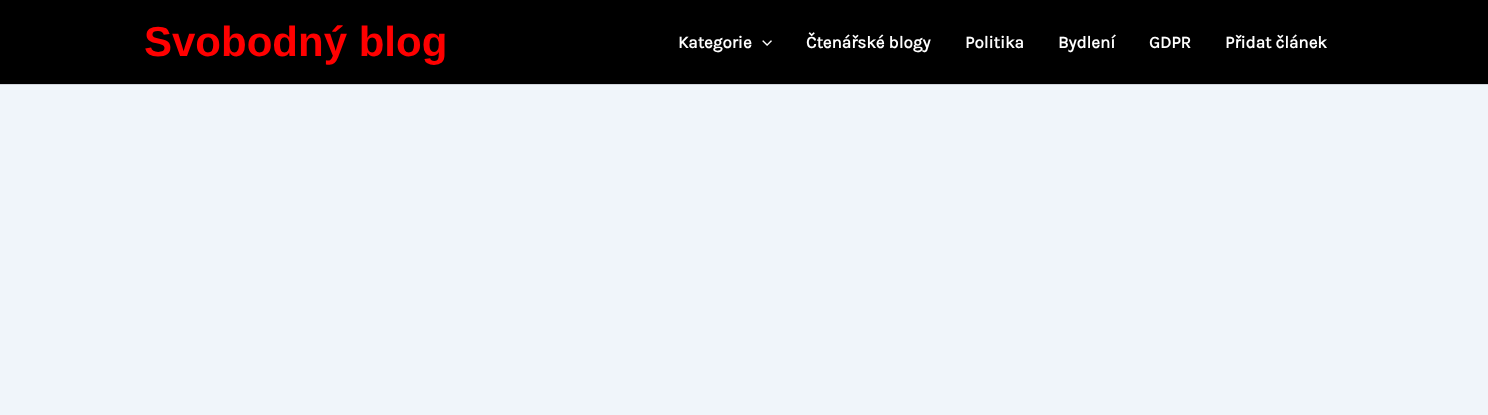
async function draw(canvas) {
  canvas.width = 1488
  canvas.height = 415
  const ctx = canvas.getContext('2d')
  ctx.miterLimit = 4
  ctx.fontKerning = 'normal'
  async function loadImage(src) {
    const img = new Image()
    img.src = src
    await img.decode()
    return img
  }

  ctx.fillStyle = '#f0f5fa'
  ctx.fillRect(0, 0, 1488, 415)
  ctx.fillStyle = '#000'
  ctx.fillRect(0, 0, 1488, 84)
  ctx.fillStyle = '#d1d5db'
  ctx.fillRect(0, 84, 1488, 1)
  ctx.font = 'bold 42px Liberation Sans'
  ctx.fillStyle = '#f00'
  ctx.fillText('Svobodný blog', 144, 56)
  ctx.font = 'bold 17px Karla'
  ctx.fillStyle = '#fff'
  ctx.fillText('Kategorie', 678, 48)
  ctx.drawImage(await loadImage('image0.png'), 762, 40, 10, 6)
  ctx.fillText('Čtenářské blogy', 806, 48)
  ctx.fillText('Politika', 965, 48)
  ctx.fillText('Bydlení', 1058, 48)
  ctx.fillText('GDPR', 1149, 48)
  ctx.fillText('Přidat článek', 1225, 48)
}

draw(document.querySelector('canvas'))
